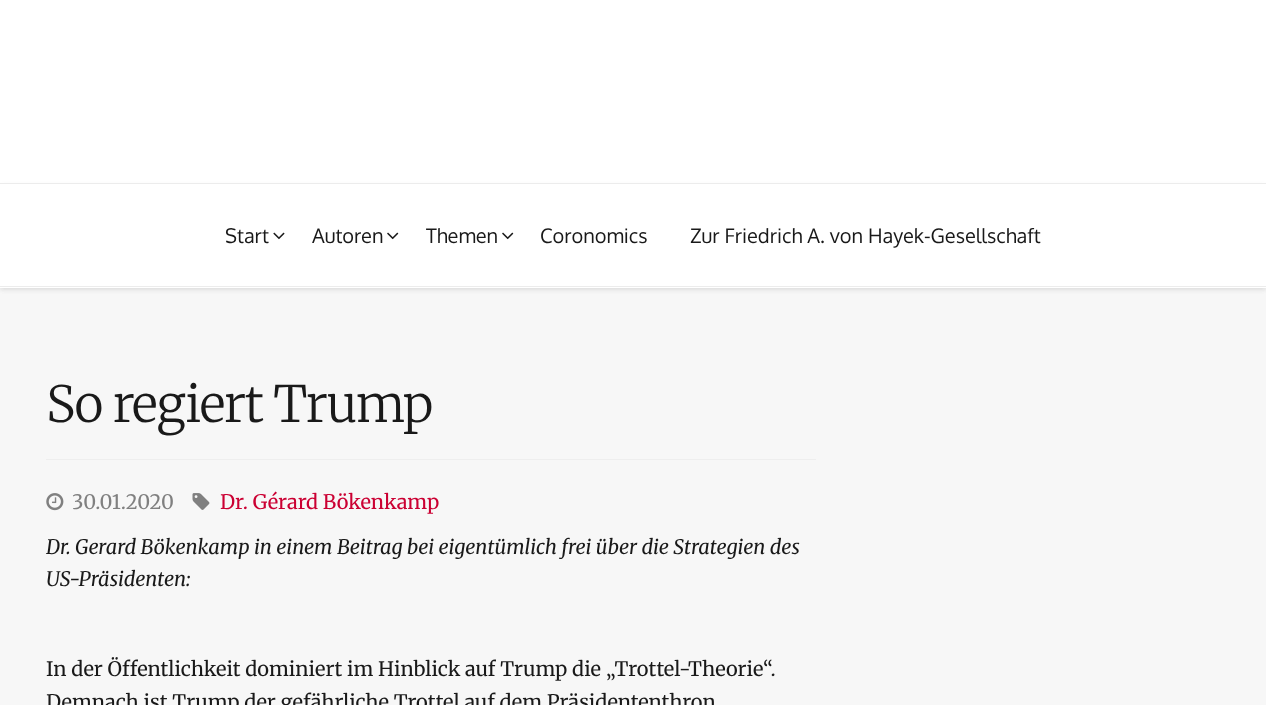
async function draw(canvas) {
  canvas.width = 1266
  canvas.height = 705
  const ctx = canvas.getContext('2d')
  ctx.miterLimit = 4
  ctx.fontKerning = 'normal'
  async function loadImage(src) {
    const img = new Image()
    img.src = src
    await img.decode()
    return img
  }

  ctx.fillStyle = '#f7f7f7'
  ctx.fillRect(0, 0, 1266, 705)
  ctx.fillStyle = '#0000000d'
  ctx.filter = 'blur(2px)'
  ctx.beginPath()
  ctx.rect(0, 3, 1266, 287)
  ctx.fill()
  ctx.filter = 'none'
  ctx.fillStyle = '#fff'
  ctx.fillRect(0, 0, 1266, 183)
  ctx.fillStyle = '#0000000d'
  ctx.filter = 'blur(2px)'
  ctx.beginPath()
  ctx.rect(0, 185, 1266, 105)
  ctx.fill()
  ctx.filter = 'none'
  ctx.fillStyle = '#fff'
  ctx.fillRect(0, 184, 1266, 104)
  ctx.fillStyle = '#ececec'
  ctx.fillRect(0, 183, 1266, 1)
  ctx.fillRect(0, 286, 1266, 1)
  ctx.font = '20px Oxygen'
  ctx.fillStyle = '#191919'
  ctx.fillText('Start', 225, 243)
  ctx.drawImage(await loadImage('image0.png'), 273, 232, 12, 8)
  ctx.fillText('Autoren', 312, 243)
  ctx.drawImage(await loadImage('image1.png'), 387, 232, 12, 8)
  ctx.fillText('Themen', 426, 243)
  ctx.drawImage(await loadImage('image1.png'), 502, 232, 12, 8)
  ctx.fillText('Coronomics', 540, 243)
  ctx.fillText('Zur Friedrich A. von Hayek-Gesellschaft', 690, 243)
  ctx.fillStyle = '#eee'
  ctx.fillRect(46, 459, 770, 1)
  ctx.letterSpacing = '-1.25px'
  ctx.font = '300 50px Merriweather'
  ctx.fillStyle = '#191919'
  ctx.fillText('So regiert Trump', 46, 422)
  ctx.drawImage(await loadImage('image2.png'), 46, 493, 18, 18)
  ctx.letterSpacing = '0px'
  ctx.font = '20px Merriweather'
  ctx.fillStyle = '#808080'
  ctx.fillText('30.01.2020', 72, 509)
  ctx.drawImage(await loadImage('image3.png'), 192, 493, 18, 17)
  ctx.fillStyle = '#cb0033'
  ctx.fillText('Dr. Gérard Bökenkamp', 220, 509)
  ctx.font = 'italic 20px Merriweather'
  ctx.fillStyle = '#191919'
  ctx.fillText('Dr. Gerard Bökenkamp in einem Beitrag bei eigentümlich frei über die Strategien des', 46, 554)
  ctx.fillText('US-Präsidenten:', 46, 586)
  ctx.font = '20px Merriweather'
  ctx.fillText('In der Öffentlichkeit dominiert im Hinblick auf Trump die „Trottel-Theorie“.', 46, 676)
  ctx.fillText('Demnach ist Trump der gefährliche Trottel auf dem Präsidententhron', 46, 709)
}

draw(document.querySelector('canvas'))
